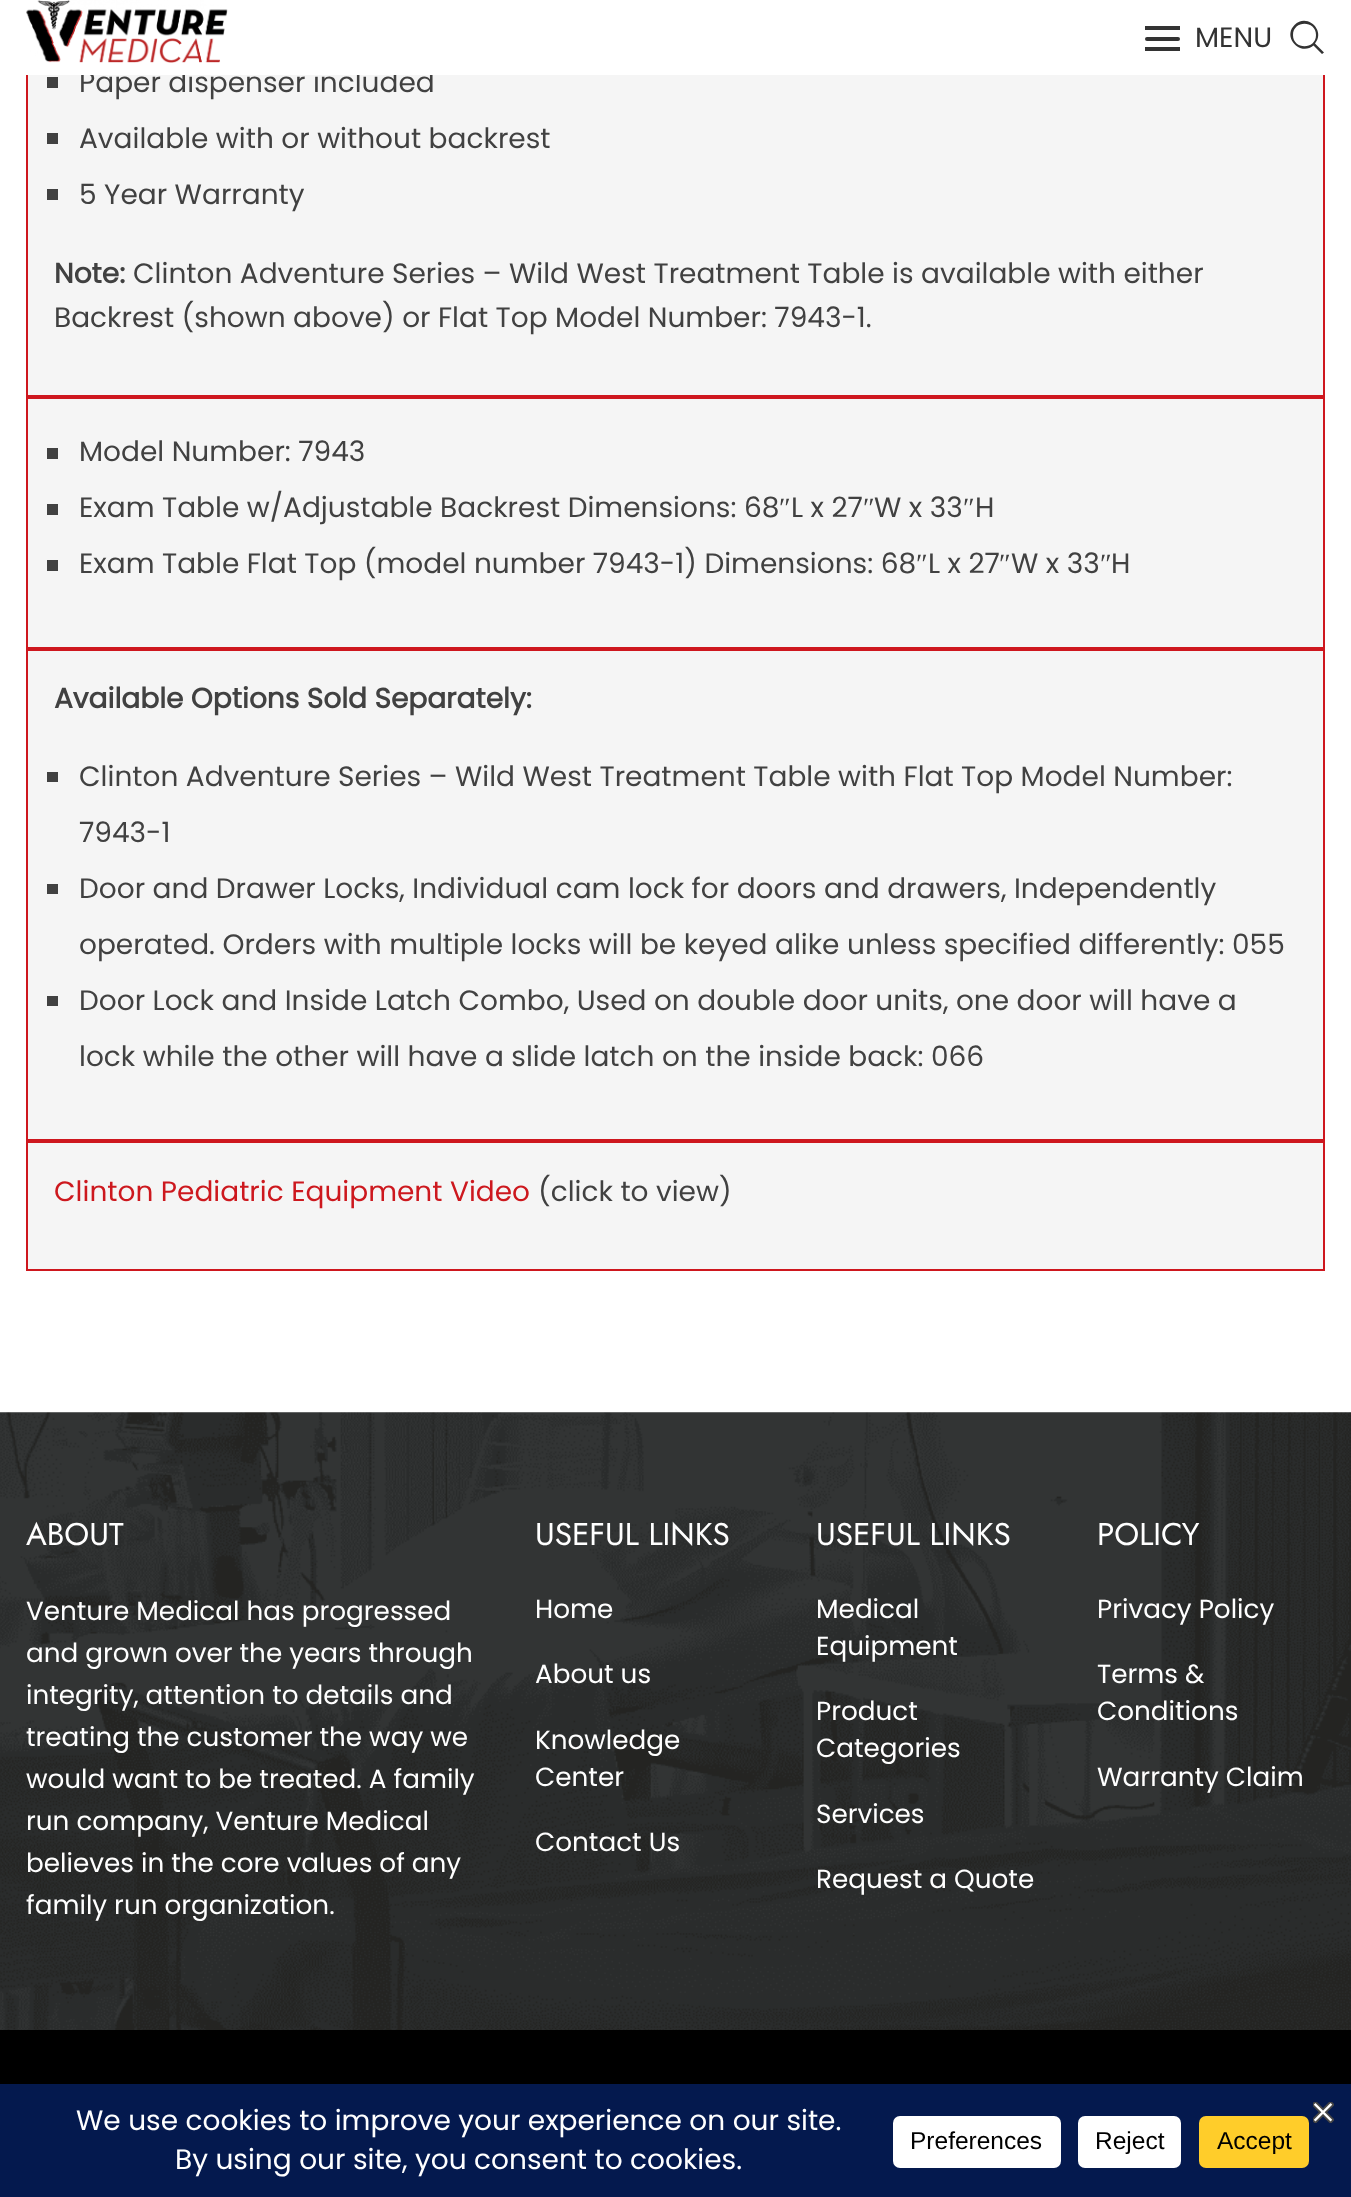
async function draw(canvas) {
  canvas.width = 1351
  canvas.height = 2197
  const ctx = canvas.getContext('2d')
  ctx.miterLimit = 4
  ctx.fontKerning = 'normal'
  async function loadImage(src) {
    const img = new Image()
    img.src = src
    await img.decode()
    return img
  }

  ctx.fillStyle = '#fff'
  ctx.fillRect(0, 0, 1351, 2197)
  ctx.fillStyle = '#f5f5f5'
  ctx.fillRect(28, 75, 1295, 320)
  ctx.strokeStyle = '#ce171e'
  ctx.lineWidth = 2
  ctx.strokeRect(27, -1, 1297, 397)
  ctx.font = '28px Poppins'
  ctx.fillStyle = '#414141'
  ctx.fillText('Paper dispenser included', 79, 92)
  ctx.fillStyle = '#fff'
  ctx.fillRect(26, 0, 1299, 75)
  ctx.drawImage(await loadImage('image0.png'), 26, 0, 202, 63)
  ctx.fillStyle = '#333'
  ctx.beginPath()
  ctx.roundRect(1145, 37, 35, 4, 2)
  ctx.fill()
  ctx.fillRect(1145, 26, 35, 4)
  ctx.fillRect(1145, 47, 35, 4)
  ctx.fillText('MENU', 1195, 47)
  ctx.beginPath()
  ctx.moveTo(1324, 52.5)
  ctx.lineTo(1315, 43.5)
  ctx.bezierCurveTo(1326, 30.5, 1307, 12.5, 1294.5, 25)
  ctx.bezierCurveTo(1282, 37.5, 1300.5, 56.5, 1313.5, 45.5)
  ctx.lineTo(1322, 54)
  ctx.closePath()
  ctx.moveTo(1293, 35)
  ctx.bezierCurveTo(1293, 20, 1316, 20, 1316, 35)
  ctx.bezierCurveTo(1316, 50, 1293, 50, 1293, 35)
  ctx.closePath()
  ctx.fill()
  ctx.fillStyle = '#414141'
  ctx.fillRect(47, 77, 11, 11)
  ctx.fillRect(47, 133, 11, 11)
  ctx.fillText('Available with or without backrest', 79, 148)
  ctx.fillRect(47, 189, 11, 11)
  ctx.fillText('5 Year Warranty', 79, 204)
  ctx.font = 'bold 28px Poppins'
  ctx.fillText('Note:', 54, 283)
  ctx.font = '28px Poppins'
  ctx.fillText('Clinton Adventure Series – Wild West Treatment Table is available with either', 133, 283)
  ctx.fillText('Backrest (shown above) or Flat Top Model Number: 7943-1.', 54, 327)
  ctx.fillStyle = '#f5f5f5'
  ctx.beginPath()
  ctx.rect(27, 398, 1297, 250)
  ctx.fill()
  ctx.stroke()
  ctx.fillStyle = '#414141'
  ctx.fillRect(47, 448, 11, 11)
  ctx.fillText('Model Number: 7943', 79, 461)
  ctx.fillText('Exam Table w/Adjustable Backrest Dimensions: 68', 79, 517)
  ctx.font = '28px Liberation Serif'
  ctx.fillText('″', 779, 517)
  ctx.font = '28px Poppins'
  ctx.fillText('L x 27', 791, 517)
  ctx.font = '28px Liberation Serif'
  ctx.fillText('″', 863, 517)
  ctx.font = '28px Poppins'
  ctx.fillText('W x 33', 874, 517)
  ctx.font = '28px Liberation Serif'
  ctx.fillText('″', 963, 517)
  ctx.font = '28px Poppins'
  ctx.fillText('H', 975, 517)
  ctx.fillRect(47, 504, 11, 11)
  ctx.fillText('Exam Table Flat Top (model number 7943-1) Dimensions: 68', 79, 573)
  ctx.font = '28px Liberation Serif'
  ctx.fillText('″', 916, 573)
  ctx.font = '28px Poppins'
  ctx.fillText('L x 27', 928, 573)
  ctx.font = '28px Liberation Serif'
  ctx.fillText('″', 999, 573)
  ctx.font = '28px Poppins'
  ctx.fillText('W x 33', 1011, 573)
  ctx.font = '28px Liberation Serif'
  ctx.fillText('″', 1100, 573)
  ctx.font = '28px Poppins'
  ctx.fillText('H', 1111, 573)
  ctx.fillRect(47, 560, 11, 11)
  ctx.fillStyle = '#f5f5f5'
  ctx.beginPath()
  ctx.rect(27, 650, 1297, 490)
  ctx.fill()
  ctx.stroke()
  ctx.font = 'bold 28px Poppins'
  ctx.fillStyle = '#414141'
  ctx.fillText('Available Options Sold Separately:', 54, 708)
  ctx.fillRect(47, 772, 11, 10)
  ctx.font = '28px Poppins'
  ctx.fillText('Clinton Adventure Series – Wild West Treatment Table with Flat Top Model Number:', 79, 786)
  ctx.fillText('7943-1', 79, 842)
  ctx.fillRect(47, 884, 11, 10)
  ctx.fillText('Door and Drawer Locks, Individual cam lock for doors and drawers, Independently', 79, 898)
  ctx.fillText('operated. Orders with multiple locks will be keyed alike unless specified differently: 055', 79, 954)
  ctx.fillRect(47, 996, 11, 10)
  ctx.fillText('Door Lock and Inside Latch Combo, Used on double door units, one door will have a', 79, 1010)
  ctx.fillText('lock while the other will have a slide latch on the inside back: 066', 79, 1066)
  ctx.fillStyle = '#f5f5f5'
  ctx.beginPath()
  ctx.rect(27, 1142, 1297, 128)
  ctx.fill()
  ctx.stroke()
  ctx.fillStyle = '#cd181e'
  ctx.fillText('Clinton Pediatric Equipment Video', 54, 1201)
  ctx.fillStyle = '#414141'
  ctx.fillText('(click to view)', 538, 1201)
  ctx.drawImage(await loadImage('image1.png'), 0, 1412, 1351, 618)
  ctx.font = '31.5px Jost'
  ctx.fillStyle = '#fff'
  ctx.fillText('ABOUT', 26, 1545)
  ctx.font = '26.25px Poppins'
  ctx.fillText('Venture Medical has progressed', 26, 1620)
  ctx.fillText('and grown over the years through', 26, 1662)
  ctx.fillText('integrity, attention to details and', 26, 1704)
  ctx.fillText('treating the customer the way we', 26, 1746)
  ctx.fillText('would want to be treated. A family', 26, 1788)
  ctx.fillText('run company, Venture Medical', 26, 1830)
  ctx.fillText('believes in the core values of any', 26, 1872)
  ctx.fillText('family run organization.', 26, 1914)
  ctx.font = '31.5px Jost'
  ctx.fillText('USEFUL LINKS', 535, 1545)
  ctx.font = '26.25px Poppins'
  ctx.fillText('Home', 535, 1618)
  ctx.fillText('About us', 535, 1683)
  ctx.fillText('Knowledge', 535, 1749)
  ctx.fillText('Center', 535, 1786)
  ctx.fillText('Contact Us', 535, 1851)
  ctx.font = '31.5px Jost'
  ctx.fillText('USEFUL LINKS', 816, 1545)
  ctx.font = '26.25px Poppins'
  ctx.fillText('Medical', 816, 1618)
  ctx.fillText('Equipment', 816, 1655)
  ctx.fillText('Product', 816, 1720)
  ctx.fillText('Categories', 816, 1757)
  ctx.fillText('Services', 816, 1823)
  ctx.fillText('Request a Quote', 816, 1888)
  ctx.font = '31.5px Jost'
  ctx.fillText('POLICY', 1097, 1545)
  ctx.font = '26.25px Poppins'
  ctx.fillText('Privacy Policy', 1097, 1618)
  ctx.fillText('Terms &', 1097, 1683)
  ctx.fillText('Conditions', 1097, 1720)
  ctx.fillText('Warranty Claim', 1097, 1786)
  ctx.fillStyle = '#000'
  ctx.fillRect(0, 2030, 1351, 54)
  ctx.fillStyle = '#04194e'
  ctx.fillRect(0, 2084, 1351, 113)
  ctx.font = '28px Poppins'
  ctx.fillStyle = '#fff'
  ctx.fillText('We use cookies to improve your experience on our site.', 76, 2130)
  ctx.fillText('By using our site, you consent to cookies.', 175, 2169)
  ctx.beginPath()
  ctx.roundRect(893, 2116, 168, 52, 7)
  ctx.fill()
  ctx.font = '24.5px Liberation Sans'
  ctx.fillStyle = '#000'
  ctx.fillText('Preferences', 910, 2149)
  ctx.fillStyle = '#fff'
  ctx.beginPath()
  ctx.roundRect(1078, 2116, 103, 52, 7)
  ctx.fill()
  ctx.fillStyle = '#000'
  ctx.fillText('Reject', 1095, 2149)
  ctx.fillStyle = '#ffcd2a'
  ctx.beginPath()
  ctx.roundRect(1199, 2116, 110, 52, 7)
  ctx.fill()
  ctx.fillStyle = '#000'
  ctx.fillText('Accept', 1217, 2149)
  ctx.drawImage(await loadImage('image2.png'), 1313, 2102, 21, 21)
}

draw(document.querySelector('canvas'))
